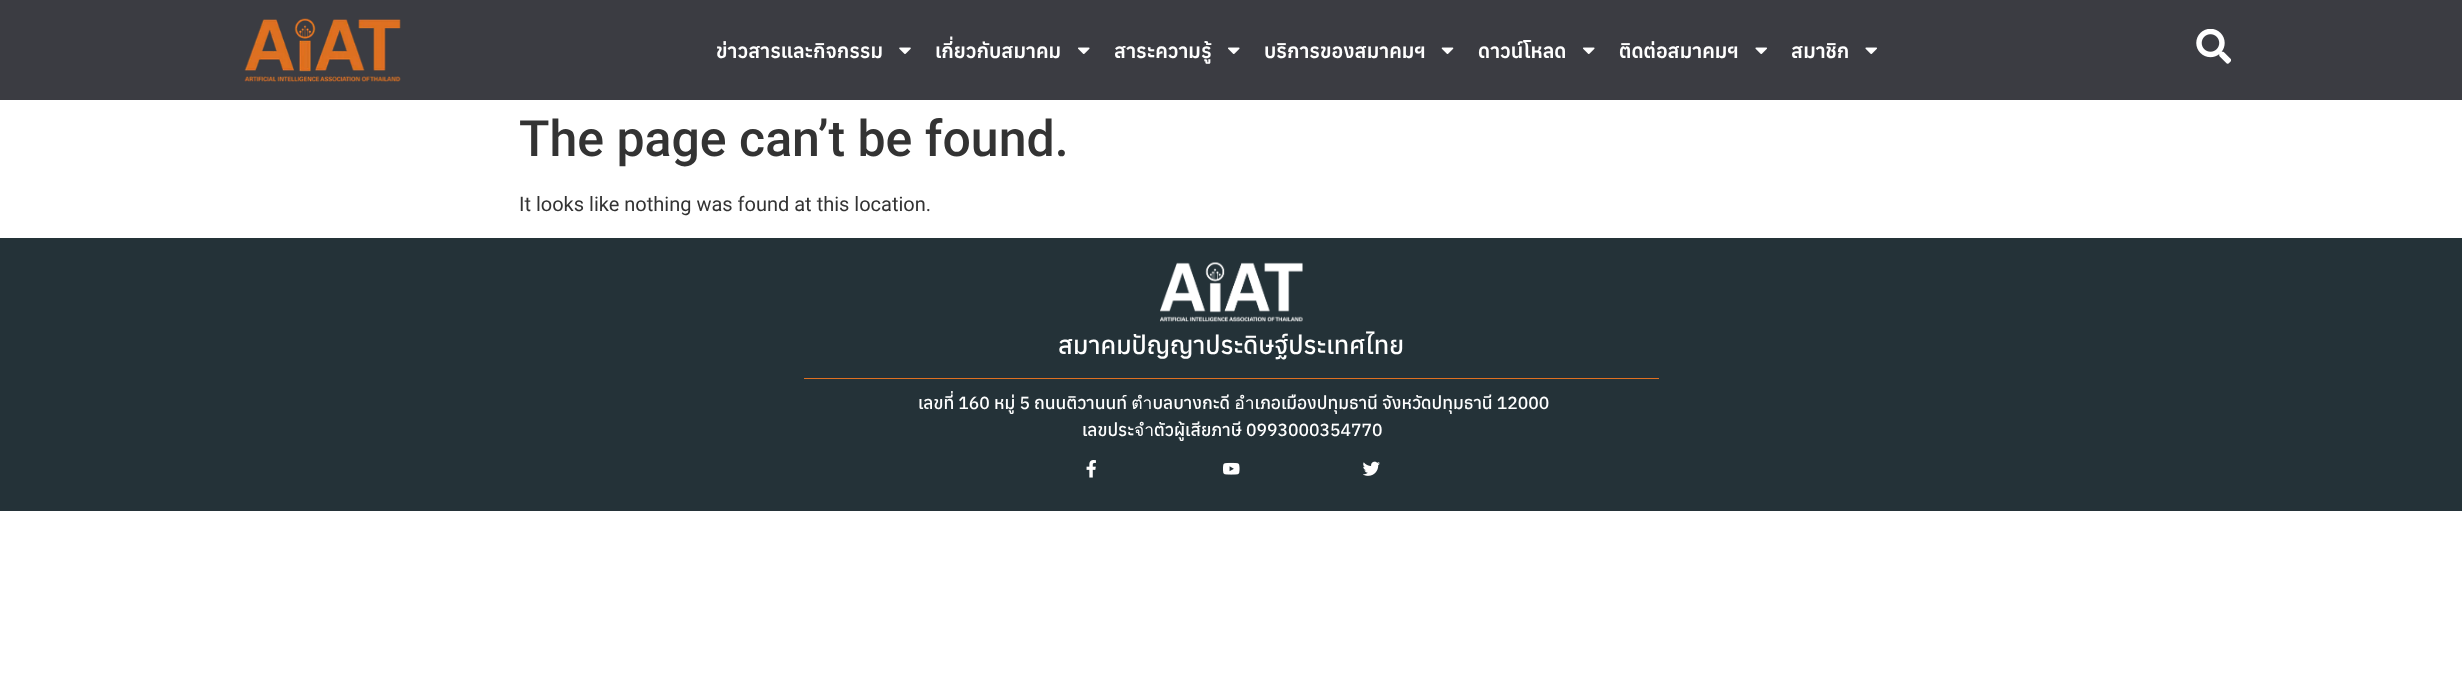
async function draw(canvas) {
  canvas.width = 2462
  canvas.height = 681
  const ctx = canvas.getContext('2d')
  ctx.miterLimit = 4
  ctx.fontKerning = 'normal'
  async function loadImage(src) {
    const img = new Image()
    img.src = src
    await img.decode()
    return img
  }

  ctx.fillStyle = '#fff'
  ctx.fillRect(0, 0, 2462, 681)
  ctx.fillStyle = '#3b3c42'
  ctx.fillRect(0, 0, 2462, 100)
  ctx.drawImage(await loadImage('image0.png'), 244, 18, 157, 64)
  ctx.font = '600 20px Anuphan'
  ctx.fillStyle = '#fff'
  ctx.fillText('ข่าวสารและกิจกรรม', 716, 58)
  ctx.drawImage(await loadImage('image1.png'), 899, 47, 12, 7)
  ctx.fillText('เกี่ยวกับสมาคม', 935, 58)
  ctx.drawImage(await loadImage('image2.png'), 1078, 47, 12, 7)
  ctx.fillText('สาระความรู้', 1114, 58)
  ctx.drawImage(await loadImage('image2.png'), 1228, 47, 12, 7)
  ctx.fillText('บริการของสมาคมฯ', 1264, 58)
  ctx.drawImage(await loadImage('image3.png'), 1441, 47, 13, 7)
  ctx.fillText('ดาวน์โหลด', 1478, 58)
  ctx.drawImage(await loadImage('image2.png'), 1583, 47, 12, 7)
  ctx.fillText('ติดต่อสมาคมฯ', 1619, 58)
  ctx.drawImage(await loadImage('image4.png'), 1755, 47, 12, 7)
  ctx.fillText('สมาชิก', 1791, 58)
  ctx.drawImage(await loadImage('image4.png'), 1865, 47, 12, 7)
  ctx.drawImage(await loadImage('image5.png'), 2196, 29, 35, 35)
  ctx.font = '500 50px Roboto'
  ctx.fillStyle = '#333'
  ctx.fillText('The page can’t be found.', 519, 156)
  ctx.font = '20px Roboto'
  ctx.fillText('It looks like nothing was found at this location.', 519, 211)
  ctx.fillStyle = '#243238'
  ctx.fillRect(0, 238, 2462, 273)
  ctx.drawImage(await loadImage('image6.png'), 1160, 262, 143, 60)
  ctx.font = '500 25px Anuphan'
  ctx.fillStyle = '#fff'
  ctx.fillText('สมาคมปัญญาประดิษฐ์ประเทศไทย', 1058, 354)
  ctx.fillStyle = '#de7022'
  ctx.fillRect(804, 378, 855, 1)
  ctx.font = '500 17.5px Anuphan'
  ctx.fillStyle = '#fff'
  ctx.fillText('เลขที่ 160 หมู่ 5 ถนนติวานนท์ ตำบลบางกะดี อำเภอเมืองปทุมธานี จังหวัดปทุมธานี 12000', 918, 409)
  ctx.fillText('เลขประจำตัวผู้เสียภาษี 0993000354770', 1082, 436)
  ctx.drawImage(await loadImage('image7.png'), 1086, 460, 10, 18)
  ctx.drawImage(await loadImage('image8.png'), 1223, 462, 17, 13)
  ctx.drawImage(await loadImage('image9.png'), 1363, 461, 17, 15)
}

draw(document.querySelector('canvas'))
